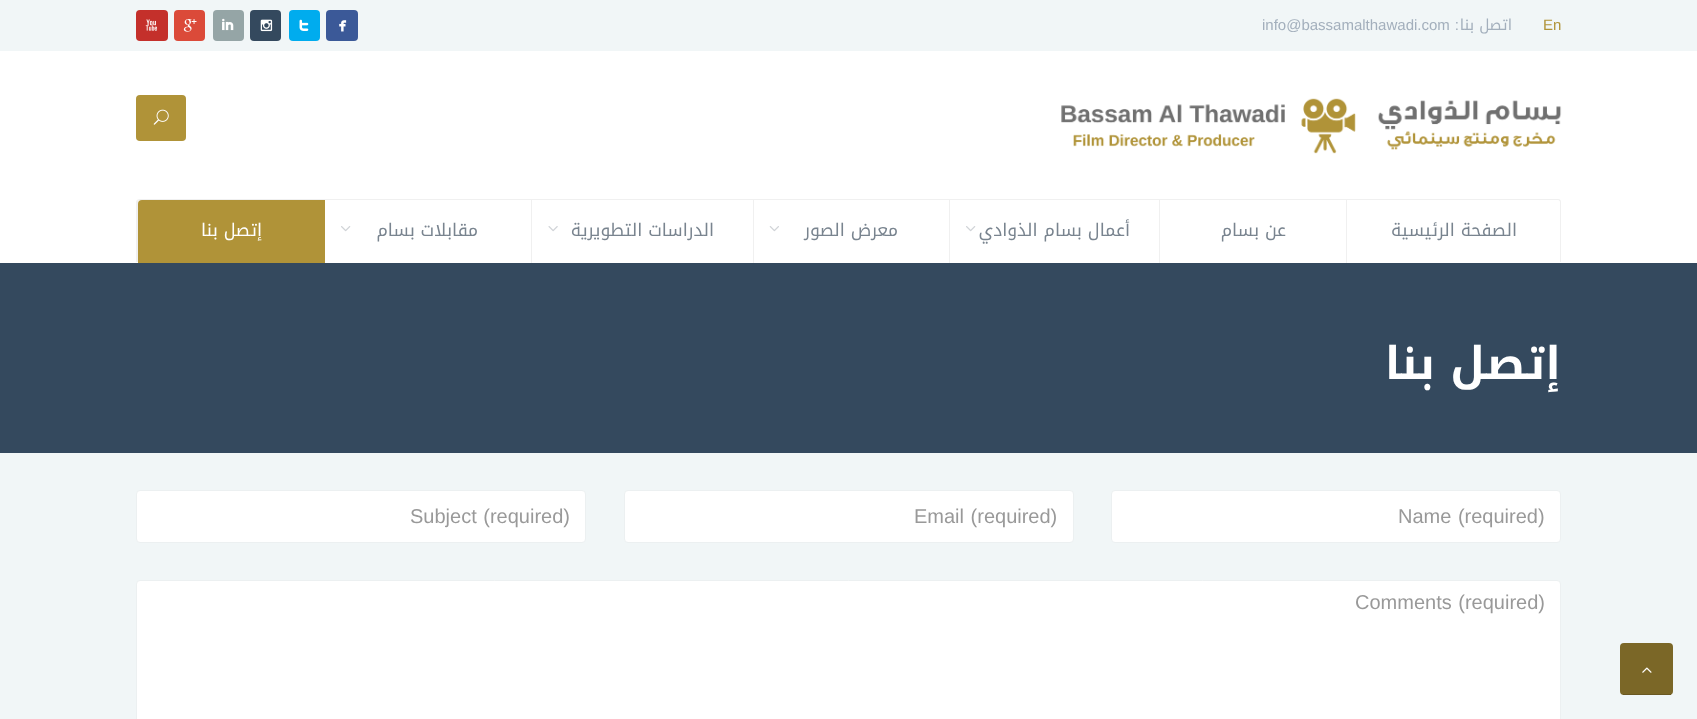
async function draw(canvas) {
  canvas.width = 1697
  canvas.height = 719
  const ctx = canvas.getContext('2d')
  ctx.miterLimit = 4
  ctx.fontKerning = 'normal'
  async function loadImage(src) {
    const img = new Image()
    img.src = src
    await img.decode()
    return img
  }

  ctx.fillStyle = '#f1f6f7'
  ctx.fillRect(0, 0, 1697, 719)
  ctx.font = '15px Liberation Sans'
  ctx.fillStyle = '#b09338'
  ctx.fillText('En', 1543, 30)
  ctx.direction = 'rtl'
  ctx.font = '15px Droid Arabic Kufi'
  ctx.fillStyle = '#a3afbc'
  ctx.fillText('اتصل بنا', 1512, 30)
  ctx.font = '15px Liberation Sans'
  ctx.fillText(':', 1459, 30)
  ctx.direction = 'ltr'
  ctx.fillText('info@bassamalthawadi.com', 1262, 30)
  ctx.fillStyle = '#3b5998'
  ctx.beginPath()
  ctx.roundRect(326, 10, 32, 31, 4)
  ctx.fill()
  ctx.drawImage(await loadImage('image0.png'), 339, 20, 8, 12)
  ctx.fillStyle = '#00acee'
  ctx.beginPath()
  ctx.roundRect(289, 10, 31, 31, 4)
  ctx.fill()
  ctx.drawImage(await loadImage('image1.png'), 299, 19, 10, 12)
  ctx.fillStyle = '#34495e'
  ctx.beginPath()
  ctx.roundRect(250, 10, 31, 31, 4)
  ctx.fill()
  ctx.drawImage(await loadImage('image2.png'), 260, 19, 13, 13)
  ctx.fillStyle = '#95a5a6'
  ctx.beginPath()
  ctx.roundRect(213, 10, 31, 31, 4)
  ctx.fill()
  ctx.drawImage(await loadImage('image3.png'), 222, 18, 12, 13)
  ctx.fillStyle = '#db4a39'
  ctx.beginPath()
  ctx.roundRect(174, 10, 31, 31, 4)
  ctx.fill()
  ctx.drawImage(await loadImage('image4.png'), 183, 19, 14, 13)
  ctx.fillStyle = '#c4302b'
  ctx.beginPath()
  ctx.roundRect(136, 10, 32, 31, 4)
  ctx.fill()
  ctx.drawImage(await loadImage('image5.png'), 145, 19, 13, 12)
  ctx.fillStyle = '#fff'
  ctx.fillRect(0, 51, 1697, 212)
  ctx.drawImage(await loadImage('image6.png'), 1061, 98, 501, 56)
  ctx.fillStyle = '#ecf0f1'
  ctx.beginPath()
  ctx.moveTo(140, 95)
  ctx.bezierCurveTo(138, 95, 136, 97, 136, 99)
  ctx.lineTo(136, 137)
  ctx.bezierCurveTo(136, 138, 136, 139, 137, 140)
  ctx.lineTo(137, 99)
  ctx.bezierCurveTo(137, 97, 138, 96, 140, 96)
  ctx.lineTo(182, 96)
  ctx.bezierCurveTo(184, 96, 185, 97, 185, 99)
  ctx.lineTo(185, 140)
  ctx.bezierCurveTo(186, 139, 186, 138, 186, 137)
  ctx.lineTo(186, 99)
  ctx.bezierCurveTo(186, 97, 184, 95, 182, 95)
  ctx.closePath()
  ctx.fill()
  ctx.fillStyle = '#b09338'
  ctx.beginPath()
  ctx.roundRect(136, 95, 50, 46, 4)
  ctx.fill()
  ctx.drawImage(await loadImage('image7.png'), 153, 109, 16, 16)
  ctx.fillStyle = '#f0f0f0'
  ctx.beginPath()
  ctx.moveTo(140, 199)
  ctx.lineTo(1558, 199)
  ctx.bezierCurveTo(1560, 199, 1561, 200, 1561, 202)
  ctx.lineTo(1561, 262)
  ctx.lineTo(136, 262)
  ctx.lineTo(136, 202)
  ctx.bezierCurveTo(136, 200, 138, 199, 140, 199)
  ctx.closePath()
  ctx.moveTo(140, 200)
  ctx.lineTo(1558, 200)
  ctx.bezierCurveTo(1559, 200, 1560, 201, 1560, 202)
  ctx.lineTo(1560, 262)
  ctx.lineTo(138, 262)
  ctx.lineTo(138, 202)
  ctx.bezierCurveTo(138, 201, 139, 200, 140, 200)
  ctx.closePath()
  ctx.fill('evenodd')
  ctx.direction = 'rtl'
  ctx.font = '17.5px Droid Arabic Kufi'
  ctx.fillStyle = '#79848f'
  ctx.fillText('الصفحة الرئيسية', 1517, 236)
  ctx.fillStyle = '#f0f0f0'
  ctx.fillRect(1346, 200, 1, 63)
  ctx.fillStyle = '#79848f'
  ctx.fillText('عن بسام', 1286, 236)
  ctx.fillStyle = '#f0f0f0'
  ctx.fillRect(1159, 200, 1, 63)
  ctx.fillStyle = '#79848f'
  ctx.fillText('أعمال بسام الذوادي', 1130, 236)
  ctx.drawImage(await loadImage('image8.png'), 966, 226, 10, 6)
  ctx.fillStyle = '#f0f0f0'
  ctx.fillRect(949, 200, 1, 63)
  ctx.fillStyle = '#79848f'
  ctx.fillText('معرض الصور', 898, 236)
  ctx.drawImage(await loadImage('image9.png'), 769, 226, 10, 6)
  ctx.fillStyle = '#f0f0f0'
  ctx.fillRect(753, 200, 1, 63)
  ctx.fillStyle = '#79848f'
  ctx.fillText('الدراسات التطويرية', 714, 236)
  ctx.drawImage(await loadImage('image10.png'), 548, 226, 10, 6)
  ctx.fillStyle = '#f0f0f0'
  ctx.fillRect(531, 200, 1, 63)
  ctx.fillStyle = '#79848f'
  ctx.fillText('مقابلات بسام', 478, 236)
  ctx.drawImage(await loadImage('image8.png'), 341, 226, 10, 6)
  ctx.fillStyle = '#b09338'
  ctx.beginPath()
  ctx.roundRect(138, 200, 187, 63, [4, 0, 0, 0])
  ctx.fill()
  ctx.fillStyle = '#fff'
  ctx.fillText('إتصل بنا', 262, 236)
  ctx.fillStyle = '#34495e'
  ctx.fillRect(0, 263, 1697, 190)
  ctx.font = 'bold 45px Droid Arabic Kufi'
  ctx.fillStyle = '#fff'
  ctx.fillText('إتصل بنا', 1561, 379)
  ctx.beginPath()
  ctx.roundRect(1111.5, 490.5, 449, 52, 3.5)
  ctx.fill()
  ctx.strokeStyle = '#ecf0f1'
  ctx.stroke()
  ctx.wordSpacing = '1px'
  ctx.direction = 'ltr'
  ctx.font = '20px Liberation Sans'
  ctx.fillStyle = '#999'
  ctx.fillText('Name (required)', 1398, 523)
  ctx.fillStyle = '#fff'
  ctx.beginPath()
  ctx.roundRect(624.5, 490.5, 449, 52, 3.5)
  ctx.fill()
  ctx.stroke()
  ctx.fillStyle = '#999'
  ctx.fillText('Email (required)', 914, 523)
  ctx.fillStyle = '#fff'
  ctx.beginPath()
  ctx.roundRect(136.5, 490.5, 449, 52, 3.5)
  ctx.fill()
  ctx.stroke()
  ctx.fillStyle = '#999'
  ctx.fillText('Subject (required)', 410, 523)
  ctx.fillStyle = '#fff'
  ctx.beginPath()
  ctx.roundRect(136.5, 580.5, 1424, 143, 3.5)
  ctx.fill()
  ctx.stroke()
  ctx.fillStyle = '#999'
  ctx.fillText('Comments (required)', 1355, 609)
  ctx.fillStyle = '#7b6727'
  ctx.beginPath()
  ctx.roundRect(1620, 643, 53, 52, 4)
  ctx.fill()
  ctx.fillStyle = '#6a5822'
  ctx.fillRect(1623, 694, 48, 1)
  ctx.drawImage(await loadImage('image11.png'), 1642, 667, 10, 6)
}

draw(document.querySelector('canvas'))
